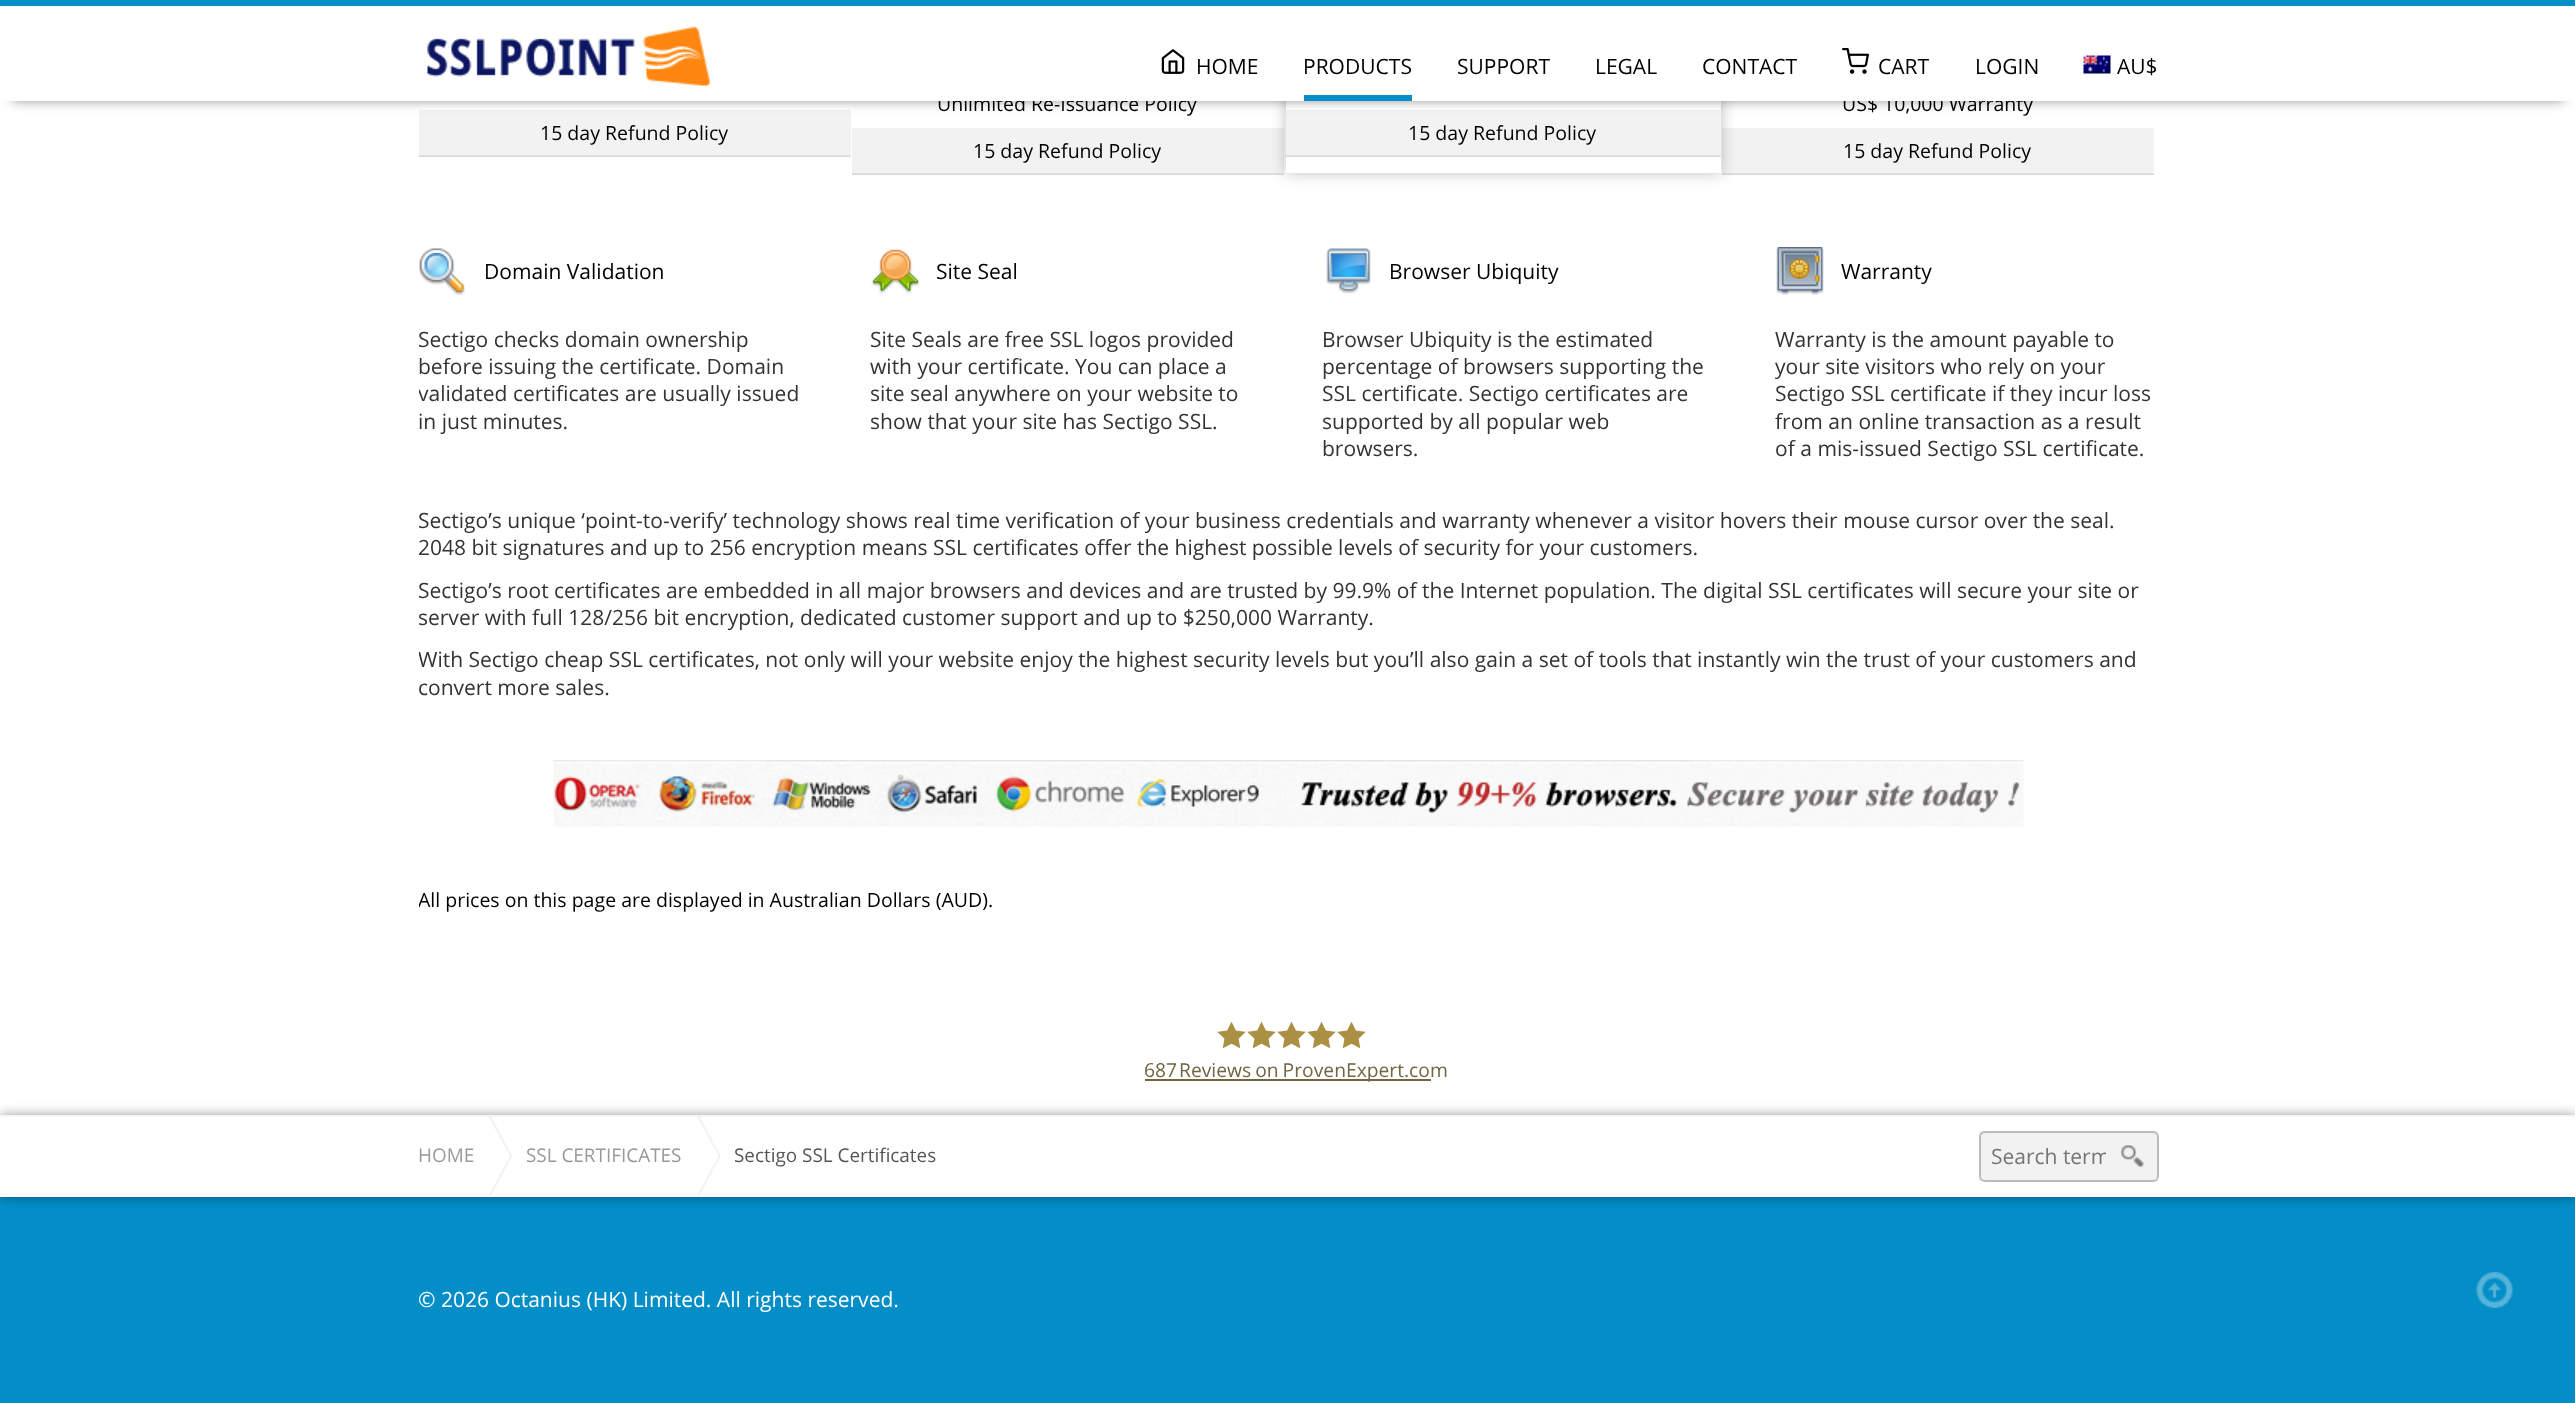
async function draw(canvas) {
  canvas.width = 2575
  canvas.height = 1403
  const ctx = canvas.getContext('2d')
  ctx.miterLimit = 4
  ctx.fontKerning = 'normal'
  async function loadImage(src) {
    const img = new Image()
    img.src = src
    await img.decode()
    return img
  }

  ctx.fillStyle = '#fff'
  ctx.fillRect(0, 0, 2575, 1403)
  ctx.drawImage(await loadImage('image4.png'), 418, 155, 433, 2)
  ctx.fillStyle = '#0000000d'
  ctx.fillRect(419, 110, 432, 46)
  ctx.drawImage(await loadImage('image5.png'), 852, 173, 432, 2)
  ctx.fillRect(852, 128, 432, 46)
  ctx.save()
  ctx.beginPath()
  ctx.moveTo(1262, 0)
  ctx.lineTo(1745, 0)
  ctx.lineTo(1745, 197)
  ctx.lineTo(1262, 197)
  ctx.closePath()
  ctx.moveTo(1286, -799)
  ctx.lineTo(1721, -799)
  ctx.lineTo(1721, 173)
  ctx.lineTo(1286, 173)
  ctx.closePath()
  ctx.clip('evenodd')
  ctx.fillStyle = '#00000040'
  ctx.filter = 'blur(7.5px)'
  ctx.beginPath()
  ctx.rect(1286, -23, 435, 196)
  ctx.fill()
  ctx.filter = 'none'
  ctx.restore()
  ctx.drawImage(await loadImage('image6.png'), 1285, 155, 436, 2)
  ctx.fillRect(1286, 110, 435, 46)
  ctx.fillStyle = '#00000066'
  ctx.filter = 'blur(6px)'
  ctx.beginPath()
  ctx.rect(12, 24, 2552, 77)
  ctx.fill()
  ctx.filter = 'none'
  ctx.font = '19.5px Open Sans'
  ctx.fillStyle = '#000'
  ctx.fillText('Unlimited Re-Issuance Policy', 937, 111)
  ctx.fillText('US$ 10,000 Warranty', 1842, 111)
  ctx.fillStyle = '#fff'
  ctx.fillRect(0, 6, 2575, 95)
  ctx.fillStyle = '#048ec7'
  ctx.fillRect(0, 0, 2575, 6)
  ctx.drawImage(await loadImage('image0.png'), 427, 26, 283, 60)
  ctx.drawImage(await loadImage('image1.png'), 1161, 49, 24, 25)
  ctx.font = '21px Open Sans'
  ctx.fillStyle = '#000'
  ctx.fillText('HOME', 1196, 74)
  ctx.fillStyle = '#048ec7'
  ctx.fillRect(1304, 95, 108, 6)
  ctx.fillStyle = '#000'
  ctx.fillText('PRODUCTS', 1303, 74)
  ctx.fillText('SUPPORT', 1457, 74)
  ctx.fillText('LEGAL', 1595, 74)
  ctx.fillText('CONTACT', 1702, 74)
  ctx.drawImage(await loadImage('image2.png'), 1842, 48, 27, 26)
  ctx.fillText('CART', 1878, 74)
  ctx.fillText('LOGIN', 1975, 74)
  ctx.drawImage(await loadImage('image3.png'), 2083, 55, 28, 19)
  ctx.fillText('AU$', 2117, 74)
  ctx.font = '19.5px Open Sans'
  ctx.fillText('15 day Refund Policy', 540, 140)
  ctx.fillText('15 day Refund Policy', 973, 158)
  ctx.fillText('15 day Refund Policy', 1408, 140)
  ctx.drawImage(await loadImage('image7.png'), 1722, 173, 432, 2)
  ctx.fillStyle = '#0000000d'
  ctx.fillRect(1722, 128, 432, 46)
  ctx.fillStyle = '#000'
  ctx.fillText('15 day Refund Policy', 1843, 158)
  ctx.drawImage(await loadImage('image8.png'), 419, 248, 46, 47)
  ctx.font = '21px Open Sans'
  ctx.fillText('Domain Validation', 484, 279)
  ctx.fillStyle = '#333'
  ctx.fillText('Sectigo checks domain ownership', 418, 347)
  ctx.fillText('before issuing the certificate. Domain', 418, 374)
  ctx.save()
  ctx.beginPath()
  ctx.rect(419, 0, 1740, 462)
  ctx.clip()
  ctx.fillText('validated certificates are usually issued', 418, 401)
  ctx.restore()
  ctx.fillText('in just minutes.', 418, 429)
  ctx.drawImage(await loadImage('image9.png'), 871, 249, 49, 45)
  ctx.fillStyle = '#000'
  ctx.fillText('Site Seal', 936, 279)
  ctx.fillStyle = '#333'
  ctx.fillText('Site Seals are free SSL logos provided', 870, 347)
  ctx.fillText('with your certificate. You can place a', 870, 374)
  ctx.fillText('site seal anywhere on your website to', 870, 401)
  ctx.fillText('show that your site has Sectigo SSL.', 870, 429)
  ctx.drawImage(await loadImage('image10.png'), 1326, 248, 45, 46)
  ctx.fillStyle = '#000'
  ctx.fillText('Browser Ubiquity', 1389, 279)
  ctx.fillStyle = '#333'
  ctx.fillText('Browser Ubiquity is the estimated', 1322, 347)
  ctx.fillText('percentage of browsers supporting the', 1322, 374)
  ctx.fillText('SSL certificate. Sectigo certificates are', 1322, 401)
  ctx.fillText('supported by all popular web', 1322, 429)
  ctx.fillText('browsers.', 1322, 456)
  ctx.drawImage(await loadImage('image11.png'), 1776, 247, 48, 48)
  ctx.fillStyle = '#000'
  ctx.fillText('Warranty', 1841, 279)
  ctx.fillStyle = '#333'
  ctx.fillText('Warranty is the amount payable to', 1775, 347)
  ctx.fillText('your site visitors who rely on your', 1775, 374)
  ctx.fillText('Sectigo SSL certificate if they incur loss', 1775, 401)
  ctx.fillText('from an online transaction as a result', 1775, 429)
  ctx.fillText('of a mis-issued Sectigo SSL certificate.', 1775, 456)
  ctx.fillText('Sectigo’s unique ‘point-to-verify’ technology shows real time verification of your business credentials and warranty whenever a visitor hovers their mouse cursor over the seal.', 418, 528)
  ctx.fillText('2048 bit signatures and up to 256 encryption means SSL certificates offer the highest possible levels of security for your customers.', 418, 555)
  ctx.fillText('Sectigo’s root certificates are embedded in all major browsers and devices and are trusted by 99.9% of the Internet population. The digital SSL certificates will secure your site or', 418, 598)
  ctx.save()
  ctx.beginPath()
  ctx.rect(419, 0, 1740, 924)
  ctx.clip()
  ctx.fillText('server with full 128/256 bit encryption, dedicated customer support and up to $250,000 Warranty.', 418, 625)
  ctx.fillText('With Sectigo cheap SSL certificates, not only will your website enjoy the highest security levels but you’ll also gain a set of tools that instantly win the trust of your customers and', 418, 667)
  ctx.restore()
  ctx.fillText('convert more sales.', 418, 695)
  ctx.drawImage(await loadImage('image12.png'), 553, 760, 1471, 67)
  ctx.save()
  ctx.beginPath()
  ctx.rect(419, 0, 1740, 924)
  ctx.clip()
  ctx.font = '19.5px Open Sans'
  ctx.fillStyle = '#000'
  ctx.fillText('All prices on this page are displayed in Australian Dollars (AUD).', 418, 907)
  ctx.restore()
  ctx.drawImage(await loadImage('image13.png'), 1217, 1021, 29, 28)
  ctx.drawImage(await loadImage('image13.png'), 1247, 1021, 29, 28)
  ctx.drawImage(await loadImage('image13.png'), 1277, 1021, 29, 28)
  ctx.drawImage(await loadImage('image13.png'), 1307, 1021, 29, 28)
  ctx.drawImage(await loadImage('image13.png'), 1337, 1021, 29, 28)
  ctx.font = '19.25px Open Sans'
  ctx.fillStyle = '#726542'
  ctx.fillText('687', 1144, 1077)
  ctx.fillRect(1145, 1079, 286, 2)
  ctx.wordSpacing = '-1px'
  ctx.fillText('Reviews on ProvenExpert.com', 1179, 1077)
  ctx.fillStyle = '#048ec7'
  ctx.fillRect(0, 1197, 2575, 206)
  ctx.save()
  ctx.beginPath()
  ctx.moveTo(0, 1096)
  ctx.lineTo(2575, 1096)
  ctx.lineTo(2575, 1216)
  ctx.lineTo(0, 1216)
  ctx.closePath()
  ctx.moveTo(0, 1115)
  ctx.lineTo(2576, 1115)
  ctx.lineTo(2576, 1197)
  ctx.lineTo(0, 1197)
  ctx.closePath()
  ctx.clip('evenodd')
  ctx.fillStyle = '#00000066'
  ctx.filter = 'blur(6px)'
  ctx.beginPath()
  ctx.rect(0, 1115, 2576, 82)
  ctx.fill()
  ctx.filter = 'none'
  ctx.restore()
  ctx.fillStyle = '#f6f6f6'
  ctx.fillRect(0, 1115, 2575, 2)
  ctx.wordSpacing = '0px'
  ctx.font = '18.9px Open Sans'
  ctx.fillStyle = '#999'
  ctx.fillText('HOME', 418, 1162)
  ctx.drawImage(await loadImage('image14.png'), 489, 1116, 23, 80)
  ctx.fillText('SSL CERTIFICATES', 526, 1162)
  ctx.drawImage(await loadImage('image15.png'), 697, 1116, 23, 80)
  ctx.fillStyle = '#555'
  ctx.fillText('Sectigo SSL Certificates', 734, 1162)
  ctx.fillStyle = '#f2f2f2'
  ctx.fillRect(1979, 1131, 179, 50)
  ctx.beginPath()
  ctx.roundRect(1980, 1132, 178, 49, 5)
  ctx.strokeStyle = '#bbb'
  ctx.lineWidth = 2
  ctx.stroke()
  ctx.save()
  ctx.beginPath()
  ctx.rect(1992, 1142, 114, 28)
  ctx.clip()
  ctx.font = '21px Open Sans'
  ctx.fillStyle = '#757575'
  ctx.fillText('Search term', 1991, 1164)
  ctx.restore()
  ctx.drawImage(await loadImage('image16.png'), 2121, 1145, 23, 22)
  ctx.font = '21px Open Sans'
  ctx.fillStyle = '#fff'
  ctx.fillText('© 2026 Octanius (HK) Limited. All rights reserved.', 418, 1307)
  ctx.drawImage(await loadImage('image17.png'), 2476, 1272, 37, 36)
}

draw(document.querySelector('canvas'))
